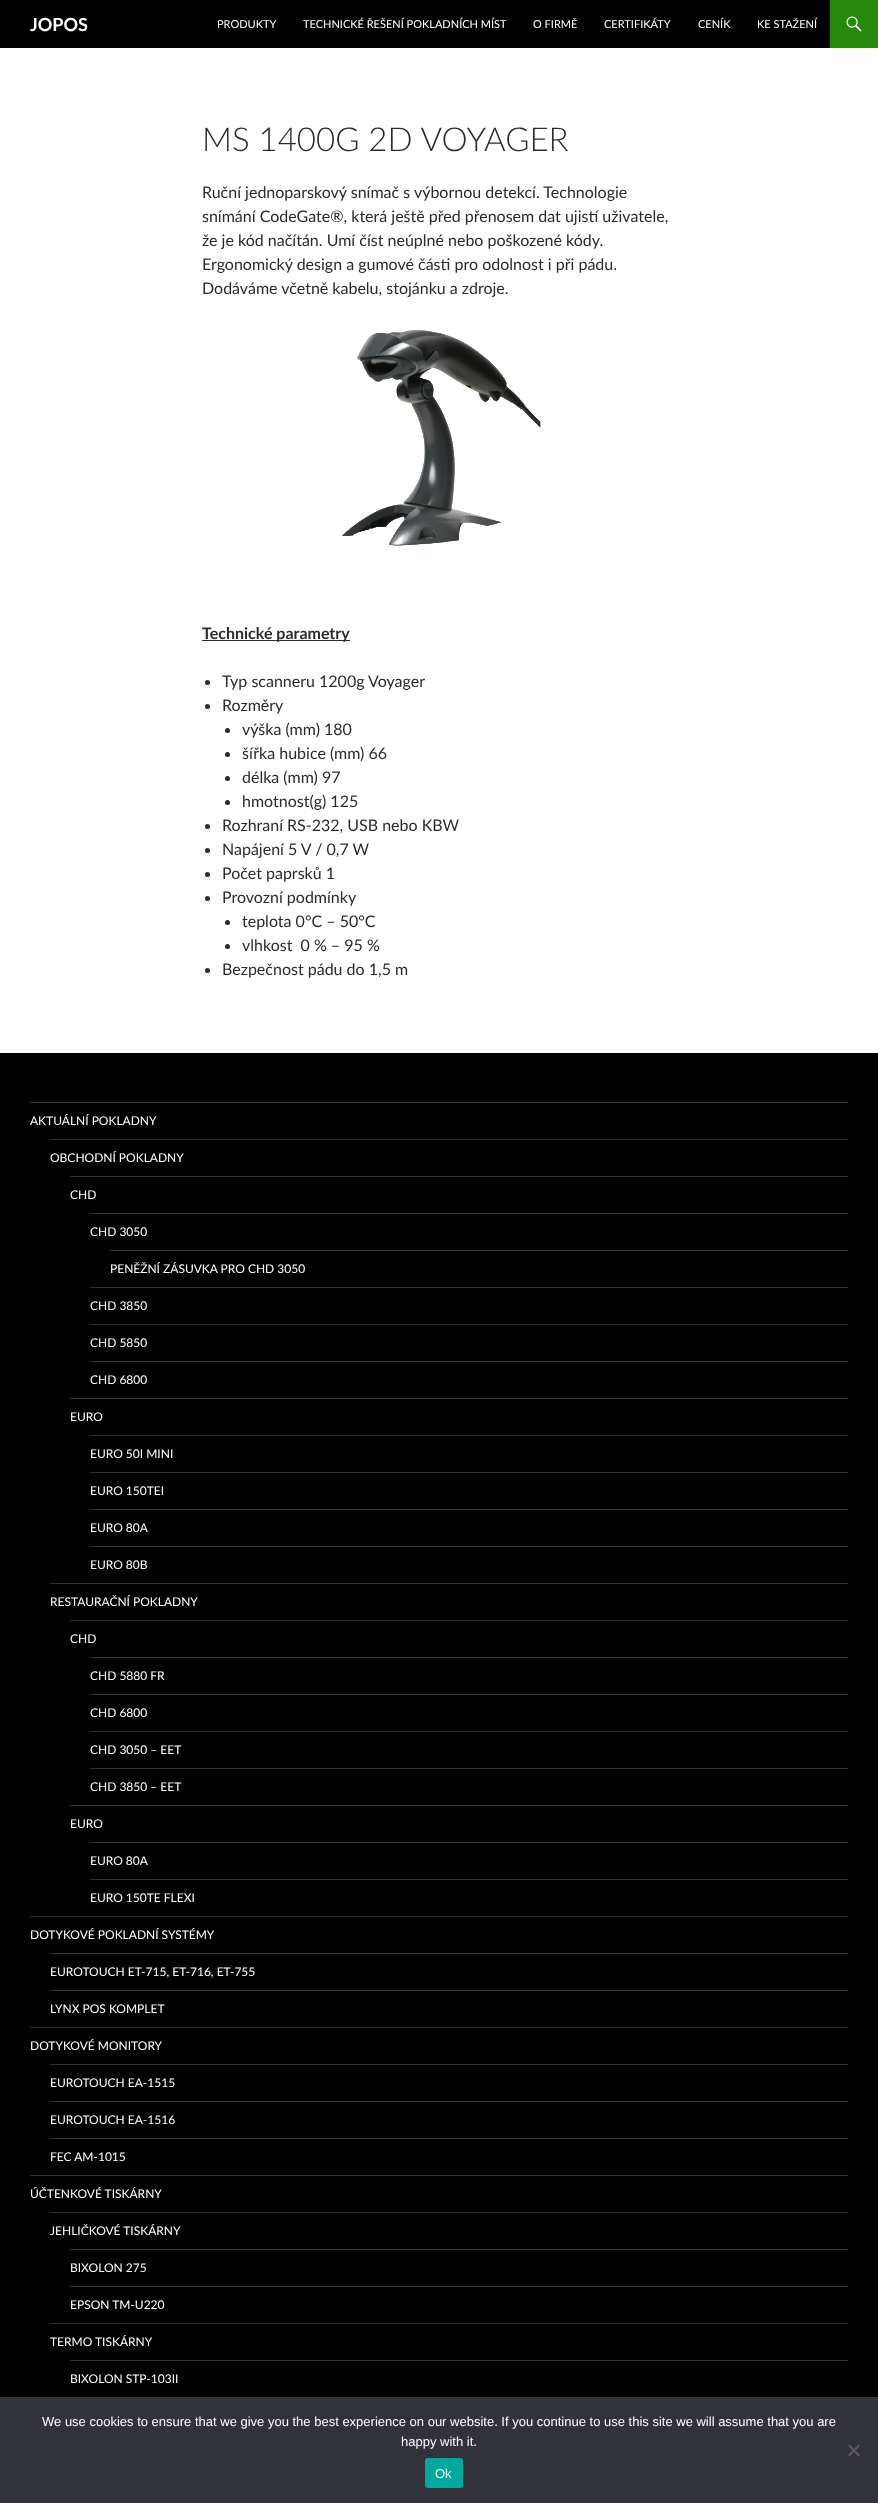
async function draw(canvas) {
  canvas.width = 878
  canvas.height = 2503
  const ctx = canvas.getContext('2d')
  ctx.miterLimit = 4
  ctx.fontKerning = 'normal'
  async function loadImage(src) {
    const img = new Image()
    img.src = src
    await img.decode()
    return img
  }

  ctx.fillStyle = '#fff'
  ctx.fillRect(0, 0, 878, 2503)
  ctx.fillStyle = '#000'
  ctx.fillRect(0, 0, 830, 48)
  ctx.font = 'bold 18px Lato'
  ctx.fillStyle = '#fff'
  ctx.fillText('JOPOS', 30, 31)
  ctx.font = '11px Lato'
  ctx.fillText('PRODUKTY', 217, 28)
  ctx.fillText('TECHNICKÉ ŘEŠENÍ POKLADNÍCH MÍST', 303, 28)
  ctx.fillText('O FIRMĚ', 533, 28)
  ctx.fillText('CERTIFIKÁTY', 604, 28)
  ctx.fillText('CENÍK', 698, 28)
  ctx.fillText('KE STAŽENÍ', 757, 28)
  ctx.fillStyle = '#24890d'
  ctx.fillRect(830, 0, 48, 48)
  ctx.drawImage(await loadImage('image0.png'), 846, 16, 16, 16)
  ctx.font = '300 33px Lato'
  ctx.fillStyle = '#2b2b2b'
  ctx.fillText('MS 1400G 2D VOYAGER', 202, 151)
  ctx.font = '16px Lato'
  ctx.fillText('Ruční jednoparskový snímač s výbornou detekcí. Technologie', 202, 198)
  ctx.fillText('snímání CodeGate®, která ještě před přenosem dat ujistí uživatele,', 202, 222)
  ctx.fillText('že je kód načítán. Umí číst neúplné nebo poškozené kódy.', 202, 246)
  ctx.fillText('Ergonomický design a gumové části pro odolnost i při pádu.', 202, 270)
  ctx.fillText('Dodáváme včetně kabelu, stojánku a zdroje.', 202, 294)
  ctx.drawImage(await loadImage('image1.png'), 342, 330, 199, 216)
  ctx.fillRect(202, 640, 148, 1)
  ctx.font = 'bold 16px Lato'
  ctx.fillText('Technické parametry', 202, 639)
  ctx.beginPath()
  ctx.arc(207.5, 682.5, 2.5, 0, 2 * Math.PI)
  ctx.fill()
  ctx.font = '16px Lato'
  ctx.fillText('Typ scanneru 1200g Voyager', 222, 687)
  ctx.beginPath()
  ctx.arc(207.5, 706.5, 2.5, 0, 2 * Math.PI)
  ctx.fill()
  ctx.fillText('Rozměry', 222, 711)
  ctx.beginPath()
  ctx.arc(227.5, 730.5, 2.5, 0, 2 * Math.PI)
  ctx.fill()
  ctx.fillText('výška (mm) 180', 242, 735)
  ctx.beginPath()
  ctx.arc(227.5, 754.5, 2.5, 0, 2 * Math.PI)
  ctx.fill()
  ctx.fillText('šířka hubice (mm) 66', 242, 759)
  ctx.beginPath()
  ctx.arc(227.5, 778.5, 2.5, 0, 2 * Math.PI)
  ctx.fill()
  ctx.fillText('délka (mm) 97', 242, 783)
  ctx.beginPath()
  ctx.arc(227.5, 802.5, 2.5, 0, 2 * Math.PI)
  ctx.fill()
  ctx.fillText('hmotnost(g) 125', 242, 807)
  ctx.beginPath()
  ctx.arc(207.5, 826.5, 2.5, 0, 2 * Math.PI)
  ctx.fill()
  ctx.fillText('Rozhraní RS-232, USB nebo KBW', 222, 831)
  ctx.beginPath()
  ctx.arc(207.5, 850.5, 2.5, 0, 2 * Math.PI)
  ctx.fill()
  ctx.fillText('Napájení 5 V / 0,7 W', 222, 855)
  ctx.beginPath()
  ctx.arc(207.5, 874.5, 2.5, 0, 2 * Math.PI)
  ctx.fill()
  ctx.fillText('Počet paprsků 1', 222, 879)
  ctx.beginPath()
  ctx.arc(207.5, 898.5, 2.5, 0, 2 * Math.PI)
  ctx.fill()
  ctx.fillText('Provozní podmínky', 222, 903)
  ctx.beginPath()
  ctx.arc(227.5, 922.5, 2.5, 0, 2 * Math.PI)
  ctx.fill()
  ctx.fillText('teplota 0°C – 50°C', 242, 927)
  ctx.beginPath()
  ctx.arc(227.5, 946.5, 2.5, 0, 2 * Math.PI)
  ctx.fill()
  ctx.fillText('vlhkost  0 % – 95 %', 242, 951)
  ctx.beginPath()
  ctx.arc(207.5, 970.5, 2.5, 0, 2 * Math.PI)
  ctx.fill()
  ctx.fillText('Bezpečnost pádu do 1,5 m', 222, 975)
  ctx.fillStyle = '#000'
  ctx.fillRect(0, 1053, 878, 1344)
  ctx.fillStyle = '#333'
  ctx.fillRect(30, 1102, 818, 1)
  ctx.font = '12px Lato'
  ctx.fillStyle = '#fff'
  ctx.fillText('AKTUÁLNÍ POKLADNY', 30, 1125)
  ctx.fillStyle = '#333'
  ctx.fillRect(50, 1139, 798, 1)
  ctx.fillStyle = '#fff'
  ctx.fillText('OBCHODNÍ POKLADNY', 50, 1162)
  ctx.fillStyle = '#333'
  ctx.fillRect(70, 1176, 778, 1)
  ctx.fillStyle = '#fff'
  ctx.fillText('CHD', 70, 1199)
  ctx.fillStyle = '#333'
  ctx.fillRect(90, 1213, 758, 1)
  ctx.fillStyle = '#fff'
  ctx.fillText('CHD 3050', 90, 1236)
  ctx.fillStyle = '#333'
  ctx.fillRect(110, 1250, 738, 1)
  ctx.fillStyle = '#fff'
  ctx.fillText('PENĚŽNÍ ZÁSUVKA PRO CHD 3050', 110, 1273)
  ctx.fillStyle = '#333'
  ctx.fillRect(90, 1287, 758, 1)
  ctx.fillStyle = '#fff'
  ctx.fillText('CHD 3850', 90, 1310)
  ctx.fillStyle = '#333'
  ctx.fillRect(90, 1324, 758, 1)
  ctx.fillStyle = '#fff'
  ctx.fillText('CHD 5850', 90, 1347)
  ctx.fillStyle = '#333'
  ctx.fillRect(90, 1361, 758, 1)
  ctx.fillStyle = '#fff'
  ctx.fillText('CHD 6800', 90, 1384)
  ctx.fillStyle = '#333'
  ctx.fillRect(70, 1398, 778, 1)
  ctx.fillStyle = '#fff'
  ctx.fillText('EURO', 70, 1421)
  ctx.fillStyle = '#333'
  ctx.fillRect(90, 1435, 758, 1)
  ctx.fillStyle = '#fff'
  ctx.fillText('EURO 50I MINI', 90, 1458)
  ctx.fillStyle = '#333'
  ctx.fillRect(90, 1472, 758, 1)
  ctx.fillStyle = '#fff'
  ctx.fillText('EURO 150TEI', 90, 1495)
  ctx.fillStyle = '#333'
  ctx.fillRect(90, 1509, 758, 1)
  ctx.fillStyle = '#fff'
  ctx.fillText('EURO 80A', 90, 1532)
  ctx.fillStyle = '#333'
  ctx.fillRect(90, 1546, 758, 1)
  ctx.fillStyle = '#fff'
  ctx.fillText('EURO 80B', 90, 1569)
  ctx.fillStyle = '#333'
  ctx.fillRect(50, 1583, 798, 1)
  ctx.fillStyle = '#fff'
  ctx.fillText('RESTAURAČNÍ POKLADNY', 50, 1606)
  ctx.fillStyle = '#333'
  ctx.fillRect(70, 1620, 778, 1)
  ctx.fillStyle = '#fff'
  ctx.fillText('CHD', 70, 1643)
  ctx.fillStyle = '#333'
  ctx.fillRect(90, 1657, 758, 1)
  ctx.fillStyle = '#fff'
  ctx.fillText('CHD 5880 FR', 90, 1680)
  ctx.fillStyle = '#333'
  ctx.fillRect(90, 1694, 758, 1)
  ctx.fillStyle = '#fff'
  ctx.fillText('CHD 6800', 90, 1717)
  ctx.fillStyle = '#333'
  ctx.fillRect(90, 1731, 758, 1)
  ctx.fillStyle = '#fff'
  ctx.fillText('CHD 3050 – EET', 90, 1754)
  ctx.fillStyle = '#333'
  ctx.fillRect(90, 1768, 758, 1)
  ctx.fillStyle = '#fff'
  ctx.fillText('CHD 3850 – EET', 90, 1791)
  ctx.fillStyle = '#333'
  ctx.fillRect(70, 1805, 778, 1)
  ctx.fillStyle = '#fff'
  ctx.fillText('EURO', 70, 1828)
  ctx.fillStyle = '#333'
  ctx.fillRect(90, 1842, 758, 1)
  ctx.fillStyle = '#fff'
  ctx.fillText('EURO 80A', 90, 1865)
  ctx.fillStyle = '#333'
  ctx.fillRect(90, 1879, 758, 1)
  ctx.fillStyle = '#fff'
  ctx.fillText('EURO 150TE FLEXI', 90, 1902)
  ctx.fillStyle = '#333'
  ctx.fillRect(30, 1916, 818, 1)
  ctx.fillStyle = '#fff'
  ctx.fillText('DOTYKOVÉ POKLADNÍ SYSTÉMY', 30, 1939)
  ctx.fillStyle = '#333'
  ctx.fillRect(50, 1953, 798, 1)
  ctx.fillStyle = '#fff'
  ctx.fillText('EUROTOUCH ET-715, ET-716, ET-755', 50, 1976)
  ctx.fillStyle = '#333'
  ctx.fillRect(50, 1990, 798, 1)
  ctx.fillStyle = '#fff'
  ctx.fillText('LYNX POS KOMPLET', 50, 2013)
  ctx.fillStyle = '#333'
  ctx.fillRect(30, 2027, 818, 1)
  ctx.fillStyle = '#fff'
  ctx.fillText('DOTYKOVÉ MONITORY', 30, 2050)
  ctx.fillStyle = '#333'
  ctx.fillRect(50, 2064, 798, 1)
  ctx.fillStyle = '#fff'
  ctx.fillText('EUROTOUCH EA-1515', 50, 2087)
  ctx.fillStyle = '#333'
  ctx.fillRect(50, 2101, 798, 1)
  ctx.fillStyle = '#fff'
  ctx.fillText('EUROTOUCH EA-1516', 50, 2124)
  ctx.fillStyle = '#333'
  ctx.fillRect(50, 2138, 798, 1)
  ctx.fillStyle = '#fff'
  ctx.fillText('FEC AM-1015', 50, 2161)
  ctx.fillStyle = '#333'
  ctx.fillRect(30, 2175, 818, 1)
  ctx.fillStyle = '#fff'
  ctx.fillText('ÚČTENKOVÉ TISKÁRNY', 30, 2198)
  ctx.fillStyle = '#333'
  ctx.fillRect(50, 2212, 798, 1)
  ctx.fillStyle = '#fff'
  ctx.fillText('JEHLIČKOVÉ TISKÁRNY', 50, 2235)
  ctx.fillStyle = '#333'
  ctx.fillRect(70, 2249, 778, 1)
  ctx.fillStyle = '#fff'
  ctx.fillText('BIXOLON 275', 70, 2272)
  ctx.fillStyle = '#333'
  ctx.fillRect(70, 2286, 778, 1)
  ctx.fillStyle = '#fff'
  ctx.fillText('EPSON TM-U220', 70, 2309)
  ctx.fillStyle = '#333'
  ctx.fillRect(50, 2323, 798, 1)
  ctx.fillStyle = '#fff'
  ctx.fillText('TERMO TISKÁRNY', 50, 2346)
  ctx.fillStyle = '#333'
  ctx.fillRect(70, 2360, 778, 1)
  ctx.fillStyle = '#fff'
  ctx.fillText('BIXOLON STP-103II', 70, 2383)
  ctx.fillStyle = '#32323a'
  ctx.fillRect(0, 2397, 878, 106)
  ctx.font = '13px Liberation Sans'
  ctx.fillStyle = '#fff'
  ctx.fillText('We use cookies to ensure that we give you the best experience on our website. If you continue to use this site we will assume that you are', 42, 2426)
  ctx.fillText('happy with it.', 401, 2446)
  ctx.fillStyle = '#59595d'
  ctx.beginPath()
  ctx.moveTo(858.5, 2444.5)
  ctx.lineTo(860, 2446)
  ctx.lineTo(849.5, 2456.5)
  ctx.lineTo(848, 2455)
  ctx.closePath()
  ctx.fill()
  ctx.beginPath()
  ctx.moveTo(848, 2446)
  ctx.lineTo(849.5, 2444.5)
  ctx.lineTo(860, 2455)
  ctx.lineTo(858.5, 2456.5)
  ctx.closePath()
  ctx.fill()
  ctx.fillStyle = '#00a99d'
  ctx.beginPath()
  ctx.roundRect(425, 2458, 38, 30, 3)
  ctx.fill()
  ctx.fillStyle = '#fff'
  ctx.fillText('Ok', 435, 2478)
}

draw(document.querySelector('canvas'))
